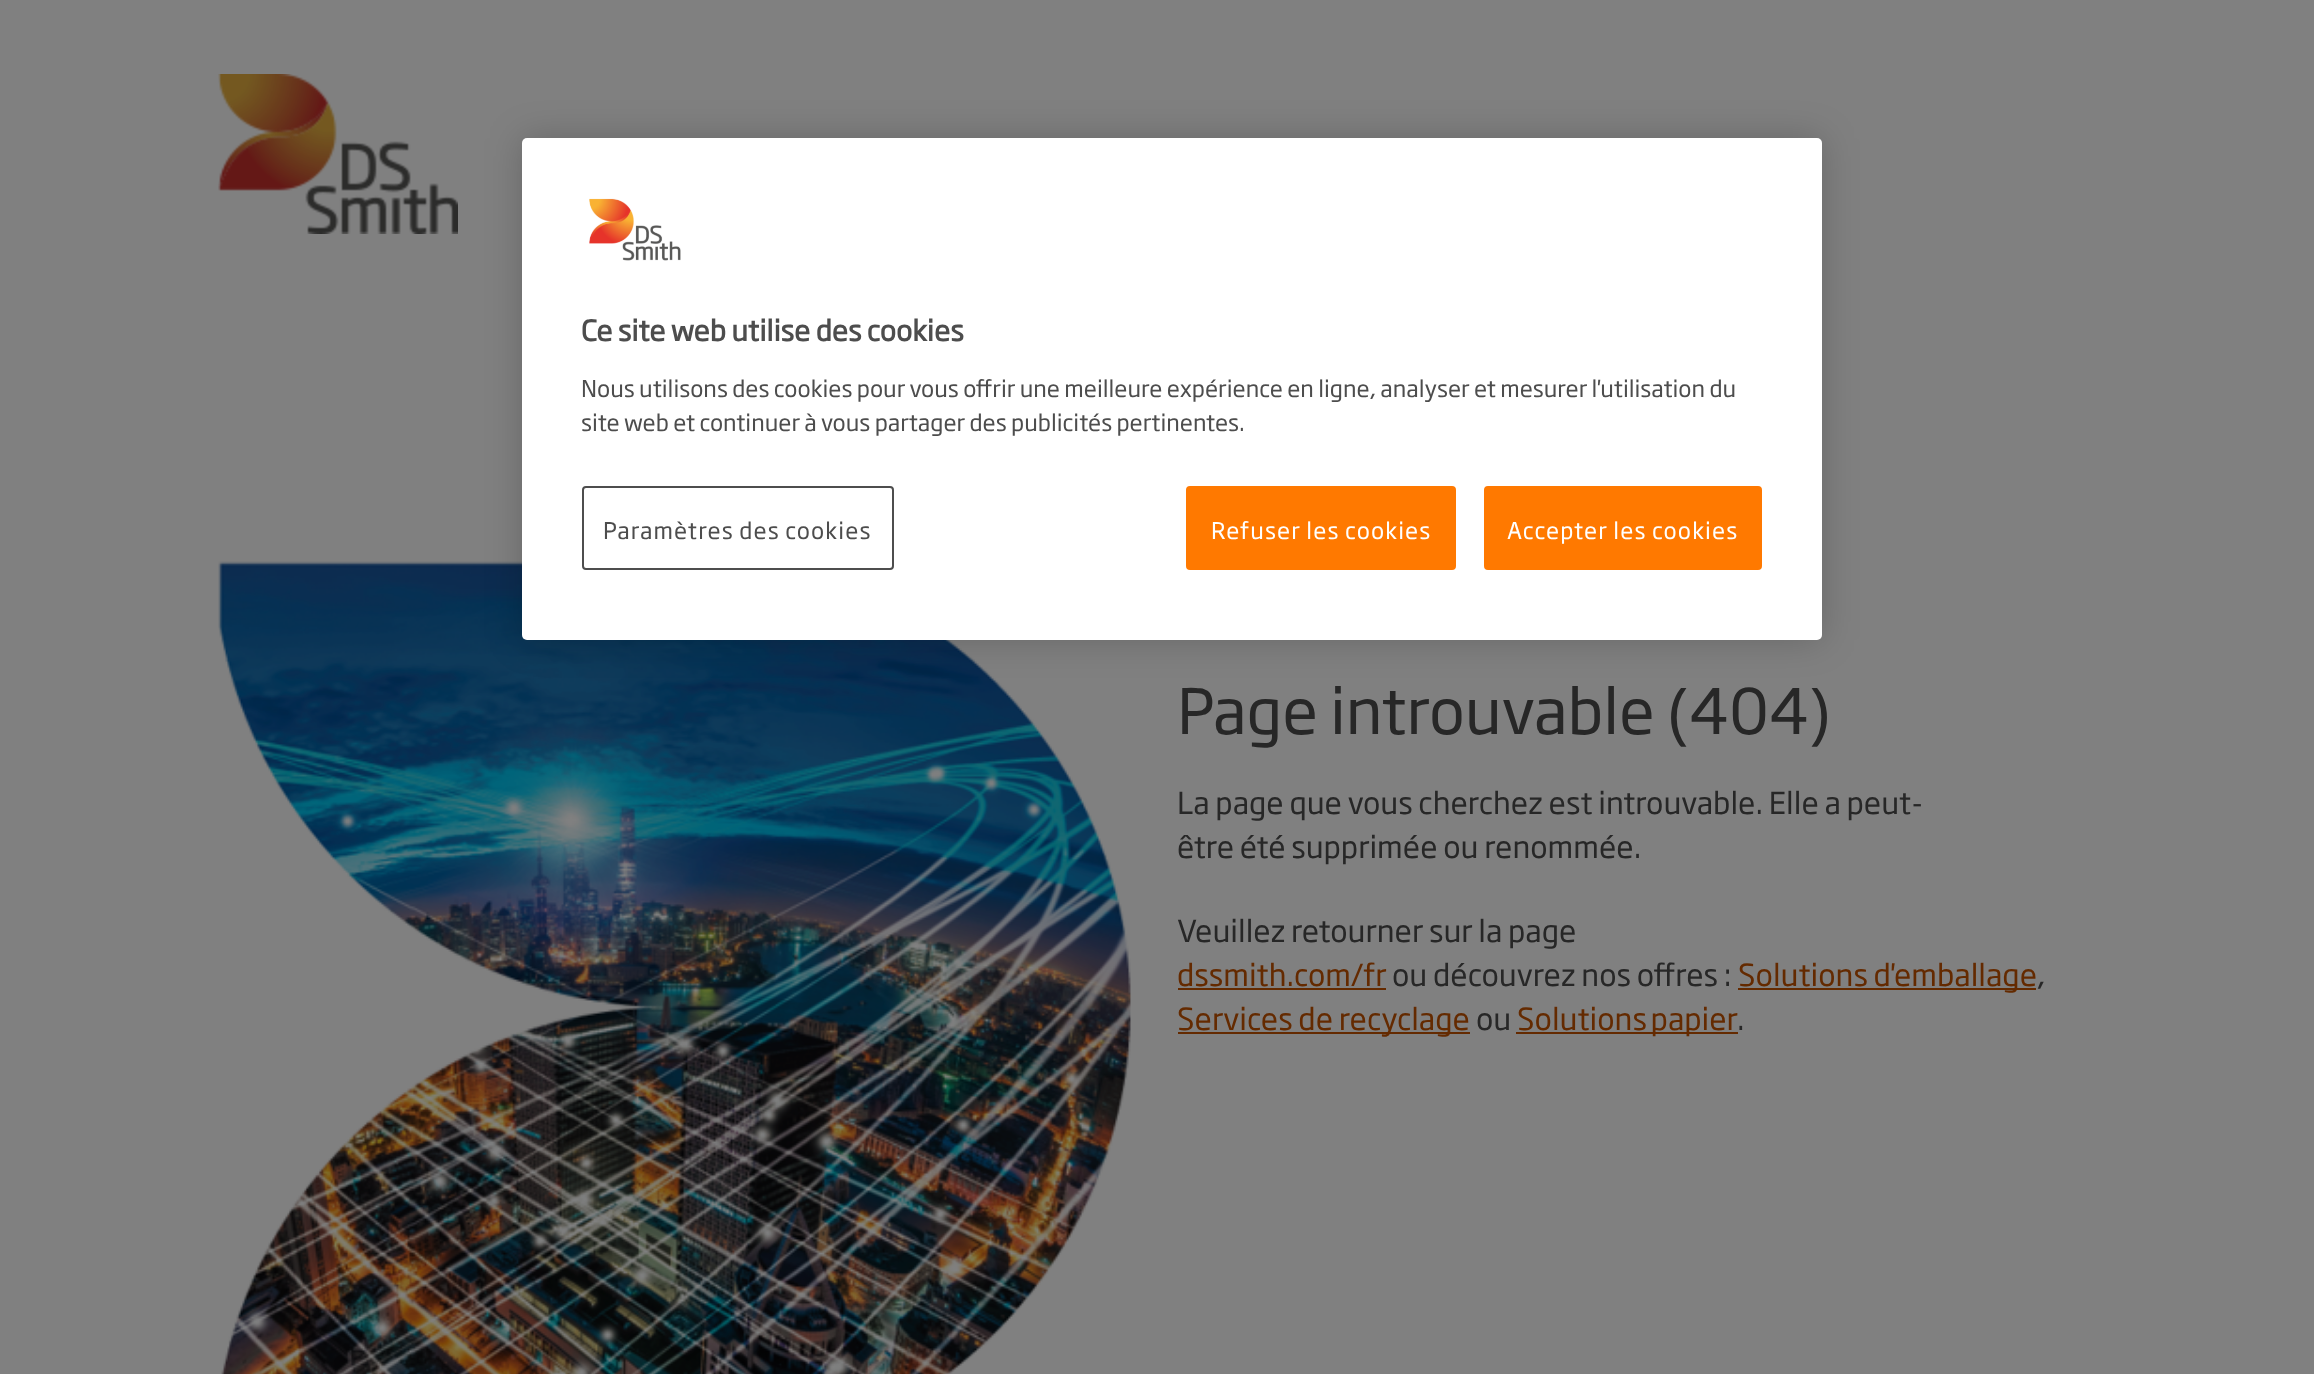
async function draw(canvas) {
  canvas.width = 2314
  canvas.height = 1374
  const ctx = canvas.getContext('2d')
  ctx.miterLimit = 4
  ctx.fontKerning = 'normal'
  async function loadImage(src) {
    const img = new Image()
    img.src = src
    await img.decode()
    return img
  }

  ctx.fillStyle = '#808080'
  ctx.fillRect(0, 0, 2314, 1374)
  ctx.drawImage(await loadImage('image2.png'), 218, 561, 913, 813)
  ctx.fillStyle = '#00000033'
  ctx.filter = 'blur(18px)'
  ctx.beginPath()
  ctx.roundRect(522, 138, 1300, 502, 5)
  ctx.fill()
  ctx.filter = 'none'
  ctx.fillStyle = '#fff'
  ctx.beginPath()
  ctx.roundRect(522, 138, 1300, 502, 5)
  ctx.fill()
  ctx.drawImage(await loadImage('image0.png'), 589, 198, 92, 63)
  ctx.font = 'bold 28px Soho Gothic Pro'
  ctx.fillStyle = '#4d4d4d'
  ctx.fillText('Ce site web utilise des cookies', 581, 341)
  ctx.font = '22.75px Soho Gothic Pro'
  ctx.fillText('Nous utilisons des cookies pour vous offrir une meilleure expérience en ligne, analyser et mesurer l\'utilisation du', 581, 397)
  ctx.fillText('site web et continuer à vous partager des publicités pertinentes.', 581, 431)
  ctx.beginPath()
  ctx.roundRect(583, 487, 310, 82, 3)
  ctx.strokeStyle = '#4d4d4d'
  ctx.lineWidth = 2
  ctx.stroke()
  ctx.letterSpacing = '1.1px'
  ctx.fillText('Paramètres des cookies', 603, 539)
  ctx.fillStyle = '#ff7900'
  ctx.beginPath()
  ctx.roundRect(1187, 487, 268, 82, 3)
  ctx.fill()
  ctx.strokeStyle = '#ff7900'
  ctx.stroke()
  ctx.fillStyle = '#fff'
  ctx.fillText('Refuser les cookies', 1211, 539)
  ctx.fillStyle = '#ff7900'
  ctx.beginPath()
  ctx.roundRect(1485, 487, 276, 82, 3)
  ctx.fill()
  ctx.stroke()
  ctx.fillStyle = '#fff'
  ctx.fillText('Accepter les cookies', 1507, 539)
  ctx.drawImage(await loadImage('image1.png'), 218, 74, 240, 160)
  ctx.letterSpacing = '0px'
  ctx.font = '62px Soho Gothic Pro'
  ctx.fillStyle = '#272727'
  ctx.fillText('Page introuvable (404)', 1177, 734)
  ctx.font = '30px Soho Gothic Pro'
  ctx.fillText('La page que vous cherchez est introuvable. Elle a peut-', 1177, 814)
  ctx.fillText('être été supprimée ou renommée.', 1177, 858)
  ctx.fillText('Veuillez retourner sur la page', 1177, 942)
  ctx.fillStyle = '#642a00'
  ctx.fillText('dssmith.com/fr', 1177, 986)
  ctx.fillRect(1178, 988, 208, 2)
  ctx.fillStyle = '#272727'
  ctx.fillText('ou découvrez nos offres :', 1392, 986)
  ctx.fillStyle = '#642a00'
  ctx.fillRect(1738, 988, 298, 2)
  ctx.fillText('Solutions d\'emballage', 1738, 986)
  ctx.fillStyle = '#272727'
  ctx.fillText(',', 2037, 986)
  ctx.fillStyle = '#642a00'
  ctx.fillRect(1178, 1032, 292, 2)
  ctx.fillText('Services de recyclage', 1177, 1030)
  ctx.fillStyle = '#272727'
  ctx.fillText('ou', 1476, 1030)
  ctx.fillStyle = '#642a00'
  ctx.fillRect(1516, 1032, 222, 2)
  ctx.wordSpacing = '-2px'
  ctx.fillText('Solutions papier', 1517, 1030)
  ctx.wordSpacing = '0px'
  ctx.fillStyle = '#272727'
  ctx.fillText('.', 1737, 1030)
}

draw(document.querySelector('canvas'))
